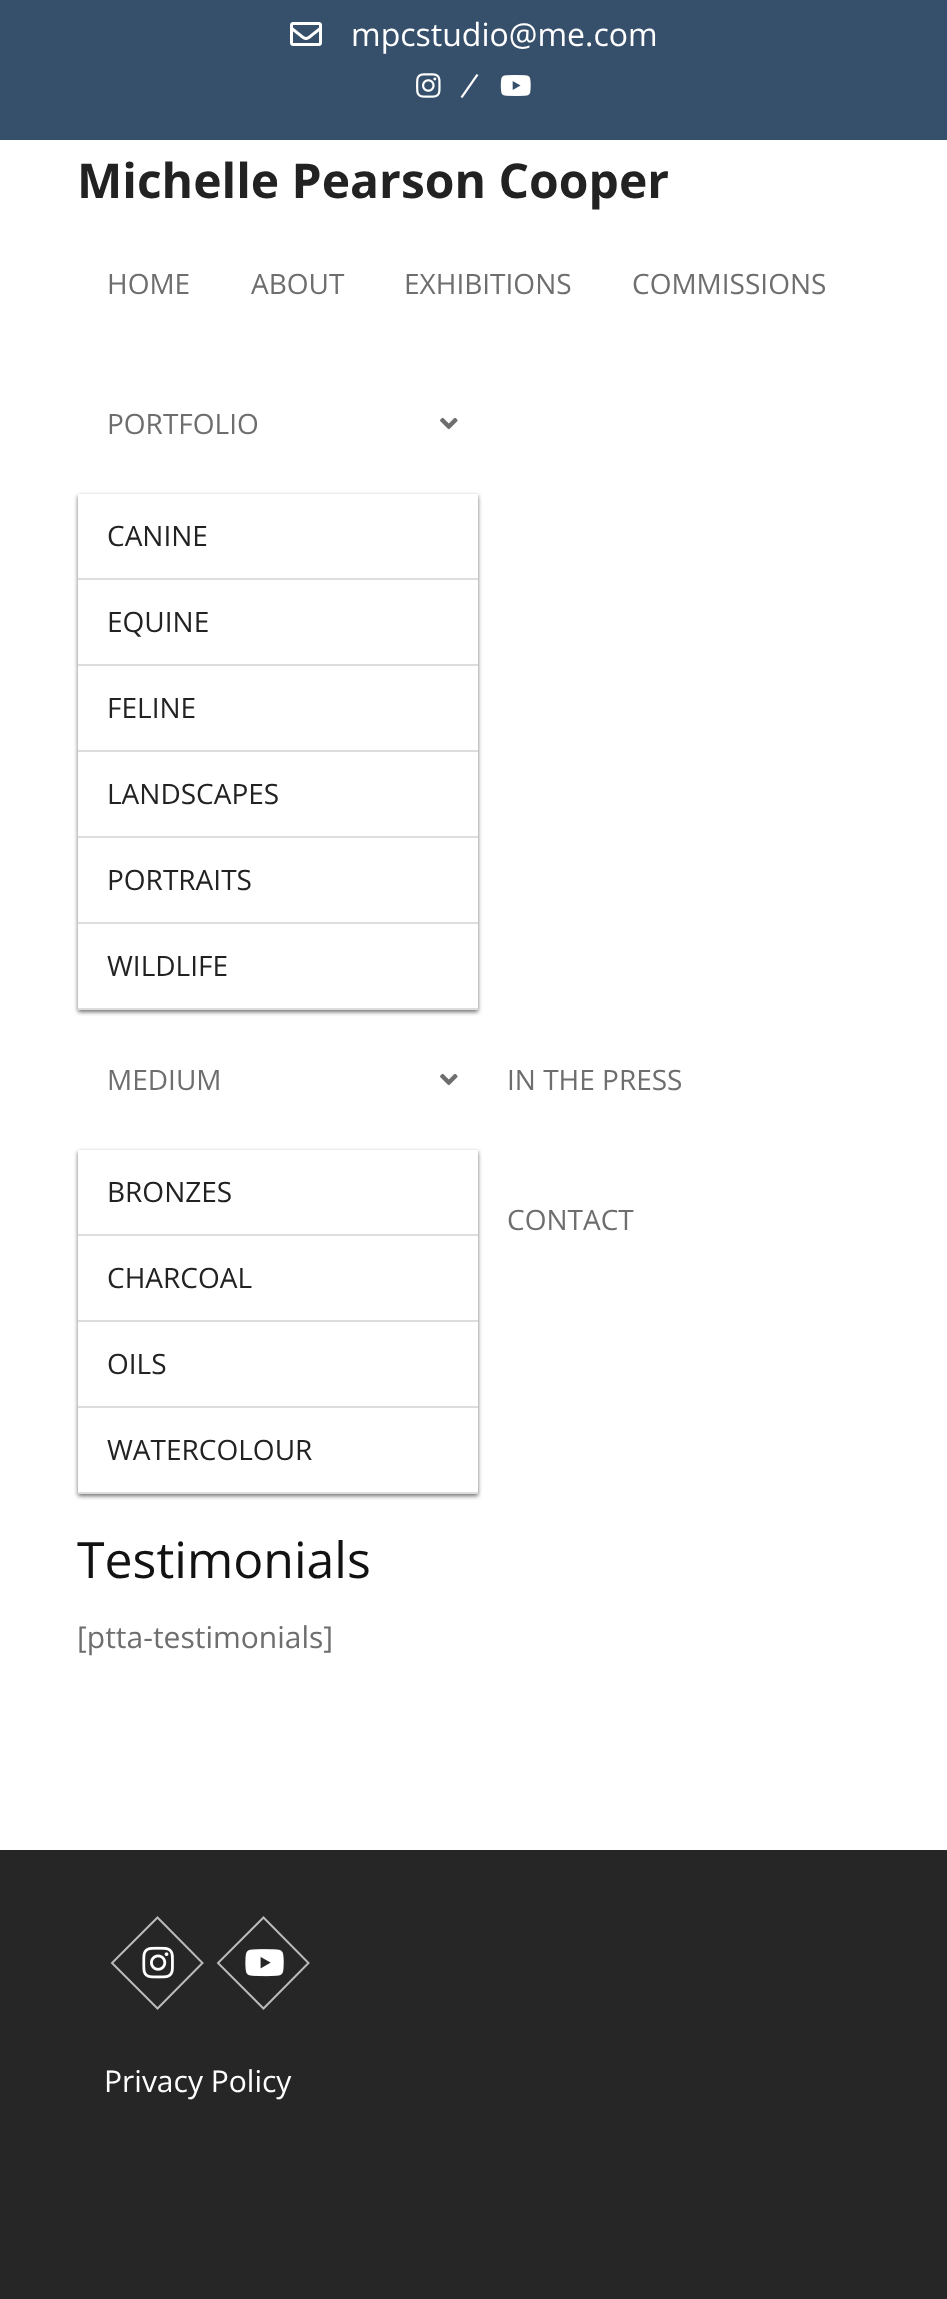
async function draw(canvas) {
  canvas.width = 947
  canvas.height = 2299
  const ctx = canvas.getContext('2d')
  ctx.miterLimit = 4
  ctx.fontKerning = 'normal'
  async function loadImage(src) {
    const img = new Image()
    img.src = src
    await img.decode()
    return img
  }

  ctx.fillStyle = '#fff'
  ctx.fillRect(0, 0, 947, 2299)
  ctx.fillStyle = '#364f6b'
  ctx.fillRect(0, 0, 947, 140)
  ctx.drawImage(await loadImage('image0.png'), 290, 22, 32, 24)
  ctx.font = '32px Open Sans'
  ctx.fillStyle = '#fff'
  ctx.fillText('mpcstudio@me.com', 351, 46)
  ctx.drawImage(await loadImage('image1.png'), 416, 73, 25, 25)
  ctx.beginPath()
  ctx.moveTo(476.5, 74)
  ctx.lineTo(478.5, 75)
  ctx.lineTo(462.5, 98)
  ctx.lineTo(460.5, 97)
  ctx.closePath()
  ctx.fill()
  ctx.drawImage(await loadImage('image2.png'), 500, 75, 31, 21)
  ctx.font = 'bold 48px Open Sans'
  ctx.fillStyle = '#222'
  ctx.fillText('Michelle Pearson Cooper', 77, 198)
  ctx.font = '28px Open Sans'
  ctx.fillStyle = '#6e6e6e'
  ctx.fillText('HOME', 107, 294)
  ctx.fillText('ABOUT', 251, 294)
  ctx.fillText('EXHIBITIONS', 404, 294)
  ctx.fillText('COMMISSIONS', 632, 294)
  ctx.fillText('PORTFOLIO', 107, 434)
  ctx.drawImage(await loadImage('image3.png'), 440, 417, 18, 13)
  ctx.save()
  ctx.beginPath()
  ctx.moveTo(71, 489)
  ctx.lineTo(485, 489)
  ctx.lineTo(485, 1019)
  ctx.lineTo(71, 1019)
  ctx.closePath()
  ctx.moveTo(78, 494)
  ctx.lineTo(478, 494)
  ctx.lineTo(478, 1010)
  ctx.lineTo(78, 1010)
  ctx.closePath()
  ctx.clip('evenodd')
  ctx.filter = 'blur(2px)'
  ctx.beginPath()
  ctx.rect(78, 496, 400, 516)
  ctx.fill()
  ctx.filter = 'none'
  ctx.restore()
  ctx.fillStyle = '#ddd'
  ctx.fillRect(78, 578, 400, 2)
  ctx.fillStyle = '#222'
  ctx.fillText('CANINE', 107, 546)
  ctx.fillStyle = '#ddd'
  ctx.fillRect(78, 664, 400, 2)
  ctx.fillStyle = '#222'
  ctx.fillText('EQUINE', 107, 632)
  ctx.fillStyle = '#ddd'
  ctx.fillRect(78, 750, 400, 2)
  ctx.fillStyle = '#222'
  ctx.fillText('FELINE', 107, 718)
  ctx.fillStyle = '#ddd'
  ctx.fillRect(78, 836, 400, 2)
  ctx.fillStyle = '#222'
  ctx.fillText('LANDSCAPES', 107, 804)
  ctx.fillStyle = '#ddd'
  ctx.fillRect(78, 922, 400, 2)
  ctx.fillStyle = '#222'
  ctx.fillText('PORTRAITS', 107, 890)
  ctx.fillStyle = '#ddd'
  ctx.fillRect(78, 1008, 400, 2)
  ctx.fillStyle = '#222'
  ctx.fillText('WILDLIFE', 107, 976)
  ctx.fillStyle = '#6e6e6e'
  ctx.fillText('MEDIUM', 107, 1090)
  ctx.drawImage(await loadImage('image3.png'), 440, 1073, 18, 13)
  ctx.save()
  ctx.beginPath()
  ctx.moveTo(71, 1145)
  ctx.lineTo(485, 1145)
  ctx.lineTo(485, 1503)
  ctx.lineTo(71, 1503)
  ctx.closePath()
  ctx.moveTo(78, 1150)
  ctx.lineTo(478, 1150)
  ctx.lineTo(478, 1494)
  ctx.lineTo(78, 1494)
  ctx.closePath()
  ctx.clip('evenodd')
  ctx.filter = 'blur(2px)'
  ctx.beginPath()
  ctx.rect(78, 1152, 400, 344)
  ctx.fill()
  ctx.filter = 'none'
  ctx.restore()
  ctx.fillStyle = '#ddd'
  ctx.fillRect(78, 1234, 400, 2)
  ctx.fillStyle = '#222'
  ctx.fillText('BRONZES', 107, 1202)
  ctx.fillStyle = '#ddd'
  ctx.fillRect(78, 1320, 400, 2)
  ctx.fillStyle = '#222'
  ctx.fillText('CHARCOAL', 107, 1288)
  ctx.fillStyle = '#ddd'
  ctx.fillRect(78, 1406, 400, 2)
  ctx.fillStyle = '#222'
  ctx.fillText('OILS', 107, 1374)
  ctx.fillStyle = '#ddd'
  ctx.fillRect(78, 1492, 400, 2)
  ctx.fillStyle = '#222'
  ctx.fillText('WATERCOLOUR', 107, 1460)
  ctx.fillStyle = '#6e6e6e'
  ctx.fillText('IN THE PRESS', 507, 1090)
  ctx.fillText('CONTACT', 507, 1230)
  ctx.font = '50px Open Sans'
  ctx.fillStyle = '#121212'
  ctx.fillText('Testimonials', 77, 1578)
  ctx.font = '30px Open Sans'
  ctx.fillStyle = '#6e6e6e'
  ctx.fillText('[ptta-testimonials]', 77, 1648)
  ctx.fillStyle = '#262626'
  ctx.fillRect(0, 1850, 947, 449)
  ctx.beginPath()
  ctx.moveTo(157.5, 1917.5)
  ctx.lineTo(202.5, 1963)
  ctx.lineTo(157.5, 2008.5)
  ctx.lineTo(112, 1963)
  ctx.closePath()
  ctx.strokeStyle = '#bababa'
  ctx.lineWidth = 2
  ctx.stroke()
  ctx.drawImage(await loadImage('image4.png'), 142, 1946, 32, 33)
  ctx.beginPath()
  ctx.moveTo(263.5, 1917.5)
  ctx.lineTo(308.5, 1963)
  ctx.lineTo(263.5, 2008.5)
  ctx.lineTo(218, 1963)
  ctx.closePath()
  ctx.stroke()
  ctx.drawImage(await loadImage('image5.png'), 245, 1949, 39, 28)
  ctx.fillStyle = '#fff'
  ctx.fillText('Privacy Policy', 104, 2092)
}

draw(document.querySelector('canvas'))
